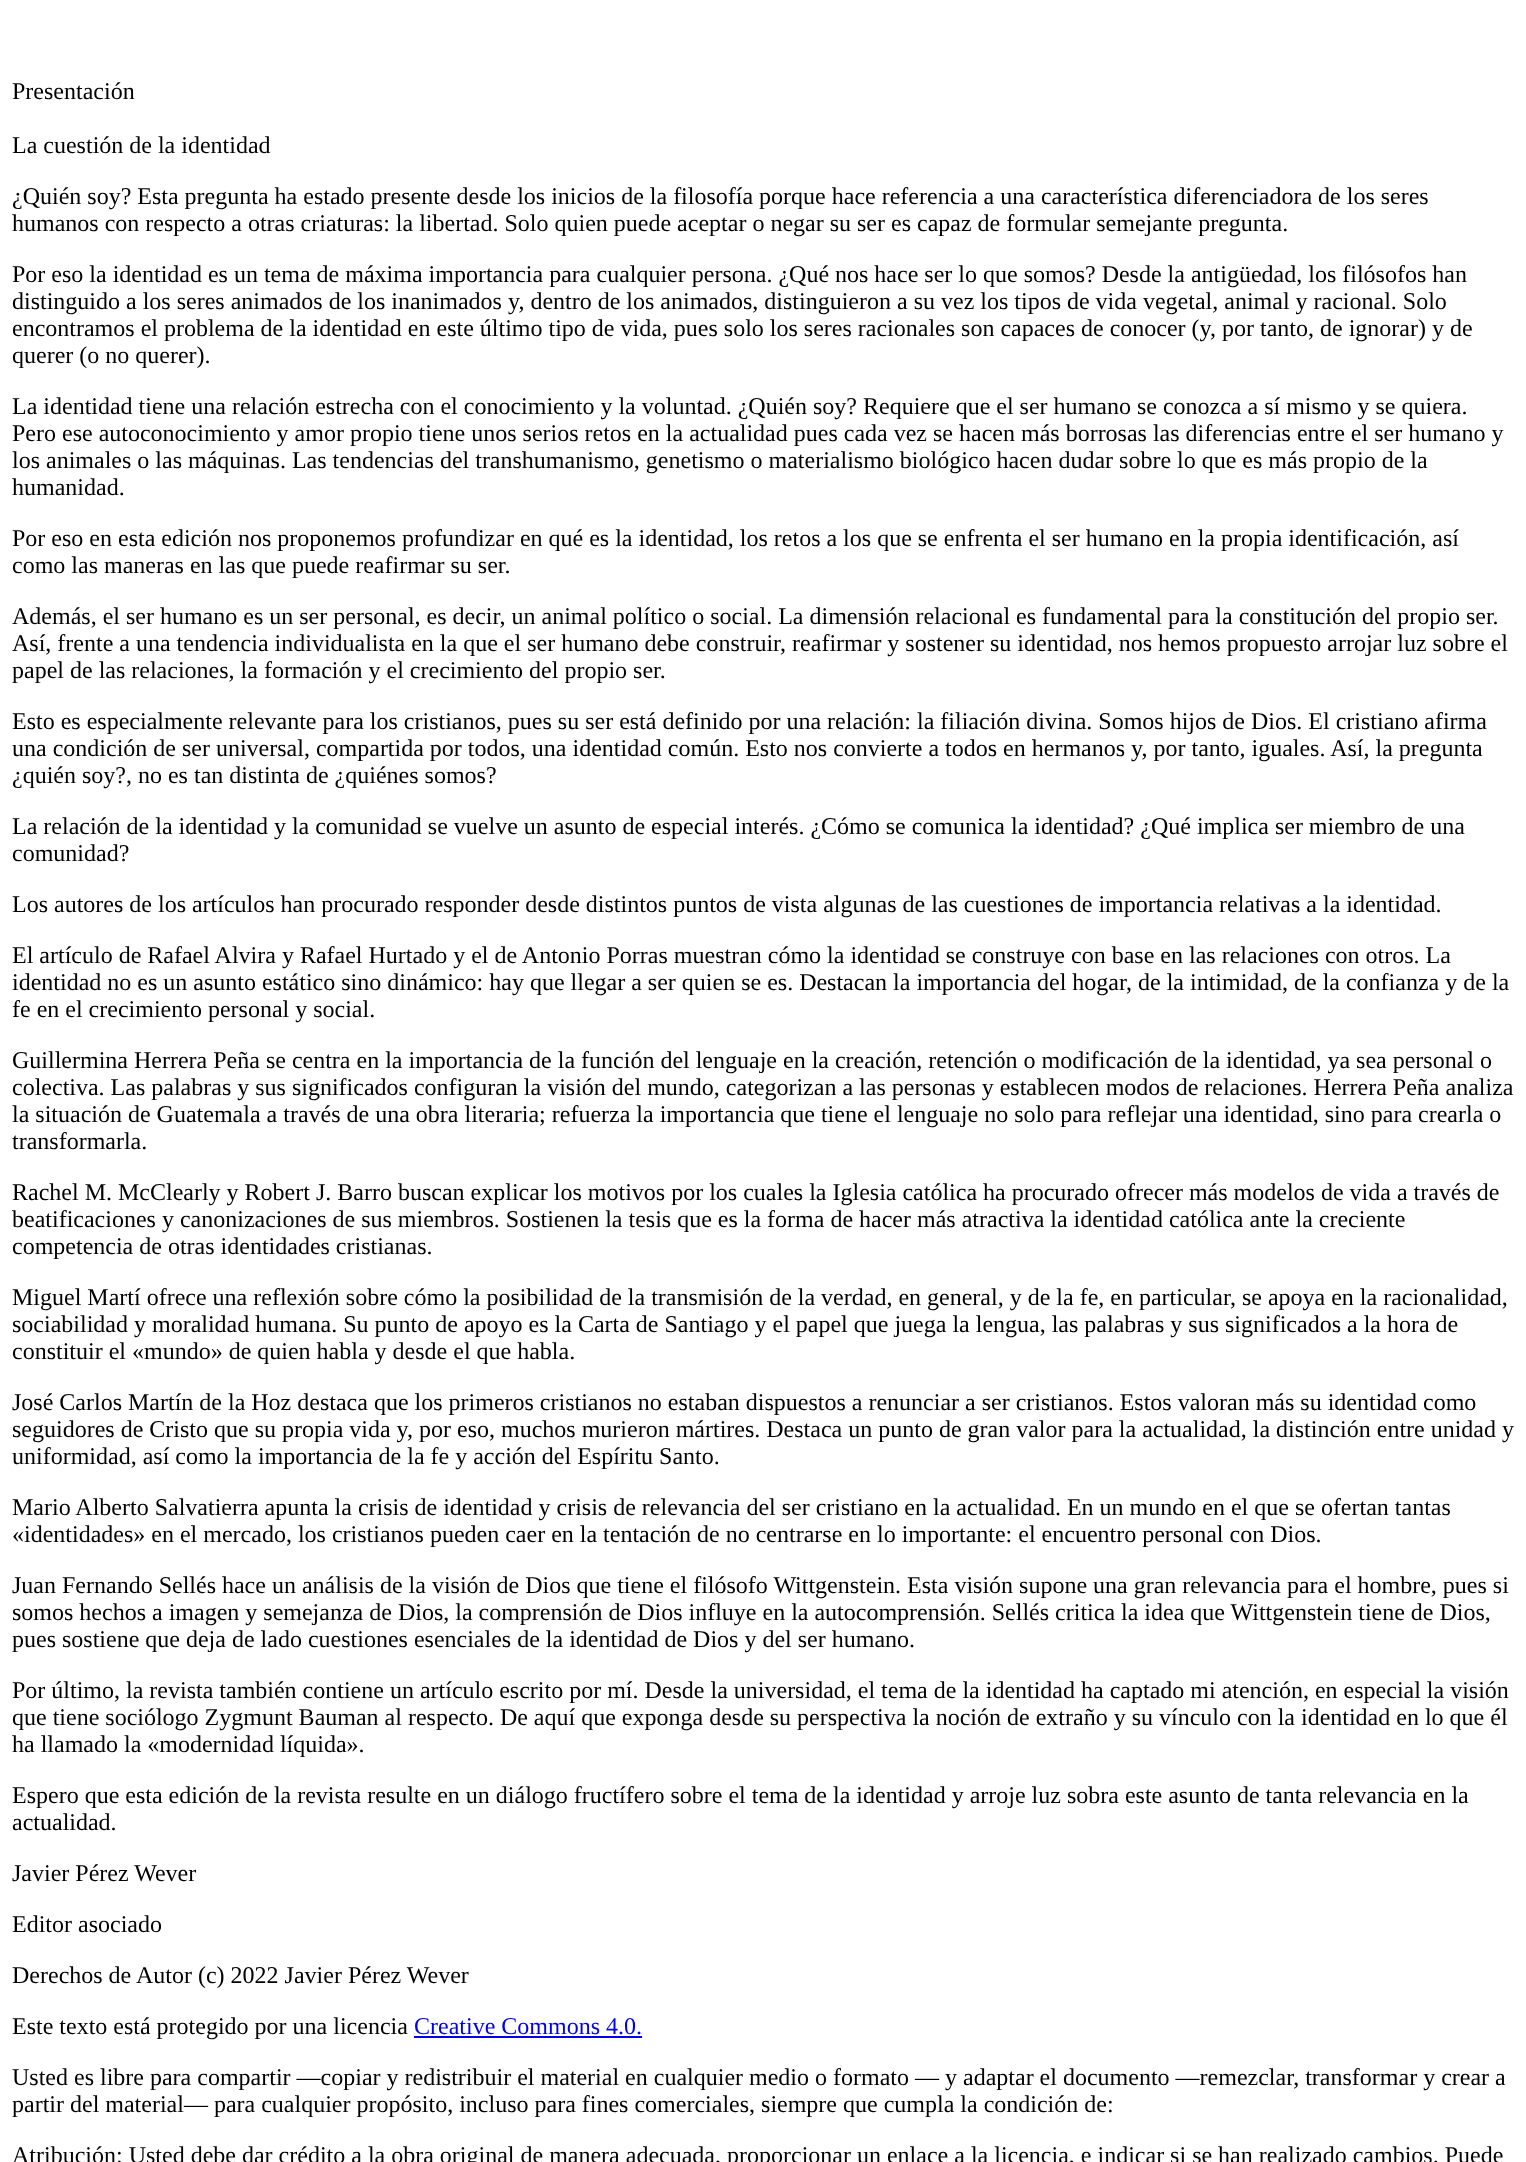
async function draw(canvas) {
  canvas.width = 1526
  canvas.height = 2162
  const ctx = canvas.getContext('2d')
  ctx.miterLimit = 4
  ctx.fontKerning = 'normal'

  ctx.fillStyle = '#fff'
  ctx.fillRect(0, 0, 1526, 2162)
  ctx.font = '24px Liberation Serif'
  ctx.fillStyle = '#000'
  ctx.fillText('Presentación', 12, 99)
  ctx.fillText('La cuestión de la identidad', 12, 153)
  ctx.fillText('¿Quién soy? Esta pregunta ha estado presente desde los inicios de la filosofía porque hace referencia a una característica diferenciadora de los seres', 12, 204)
  ctx.fillText('humanos con respecto a otras criaturas: la libertad. Solo quien puede aceptar o negar su ser es capaz de formular semejante pregunta.', 12, 231)
  ctx.fillText('Por eso la identidad es un tema de máxima importancia para cualquier persona. ¿Qué nos hace ser lo que somos? Desde la antigüedad, los filósofos han', 12, 282)
  ctx.fillText('distinguido a los seres animados de los inanimados y, dentro de los animados, distinguieron a su vez los tipos de vida vegetal, animal y racional. Solo', 12, 309)
  ctx.fillText('encontramos el problema de la identidad en este último tipo de vida, pues solo los seres racionales son capaces de conocer (y, por tanto, de ignorar) y de', 12, 336)
  ctx.fillText('querer (o no querer).', 12, 363)
  ctx.fillText('La identidad tiene una relación estrecha con el conocimiento y la voluntad. ¿Quién soy? Requiere que el ser humano se conozca a sí mismo y se quiera.', 12, 414)
  ctx.fillText('Pero ese autoconocimiento y amor propio tiene unos serios retos en la actualidad pues cada vez se hacen más borrosas las diferencias entre el ser humano y', 12, 441)
  ctx.fillText('los animales o las máquinas. Las tendencias del transhumanismo, genetismo o materialismo biológico hacen dudar sobre lo que es más propio de la', 12, 468)
  ctx.fillText('humanidad.', 12, 495)
  ctx.fillText('Por eso en esta edición nos proponemos profundizar en qué es la identidad, los retos a los que se enfrenta el ser humano en la propia identificación, así', 12, 546)
  ctx.fillText('como las maneras en las que puede reafirmar su ser.', 12, 573)
  ctx.fillText('Además, el ser humano es un ser personal, es decir, un animal político o social. La dimensión relacional es fundamental para la constitución del propio ser.', 12, 624)
  ctx.fillText('Así, frente a una tendencia individualista en la que el ser humano debe construir, reafirmar y sostener su identidad, nos hemos propuesto arrojar luz sobre el', 12, 651)
  ctx.fillText('papel de las relaciones, la formación y el crecimiento del propio ser.', 12, 678)
  ctx.fillText('Esto es especialmente relevante para los cristianos, pues su ser está definido por una relación: la filiación divina. Somos hijos de Dios. El cristiano afirma', 12, 729)
  ctx.fillText('una condición de ser universal, compartida por todos, una identidad común. Esto nos convierte a todos en hermanos y, por tanto, iguales. Así, la pregunta', 12, 756)
  ctx.fillText('¿quién soy?, no es tan distinta de ¿quiénes somos?', 12, 783)
  ctx.fillText('La relación de la identidad y la comunidad se vuelve un asunto de especial interés. ¿Cómo se comunica la identidad? ¿Qué implica ser miembro de una', 12, 834)
  ctx.fillText('comunidad?', 12, 861)
  ctx.fillText('Los autores de los artículos han procurado responder desde distintos puntos de vista algunas de las cuestiones de importancia relativas a la identidad.', 12, 912)
  ctx.fillText('El artículo de Rafael Alvira y Rafael Hurtado y el de Antonio Porras muestran cómo la identidad se construye con base en las relaciones con otros. La', 12, 963)
  ctx.fillText('identidad no es un asunto estático sino dinámico: hay que llegar a ser quien se es. Destacan la importancia del hogar, de la intimidad, de la confianza y de la', 12, 990)
  ctx.fillText('fe en el crecimiento personal y social.', 12, 1017)
  ctx.fillText('Guillermina Herrera Peña se centra en la importancia de la función del lenguaje en la creación, retención o modificación de la identidad, ya sea personal o', 12, 1068)
  ctx.fillText('colectiva. Las palabras y sus significados configuran la visión del mundo, categorizan a las personas y establecen modos de relaciones. Herrera Peña analiza', 12, 1095)
  ctx.fillText('la situación de Guatemala a través de una obra literaria; refuerza la importancia que tiene el lenguaje no solo para reflejar una identidad, sino para crearla o', 12, 1122)
  ctx.fillText('transformarla.', 12, 1149)
  ctx.fillText('Rachel M. McClearly y Robert J. Barro buscan explicar los motivos por los cuales la Iglesia católica ha procurado ofrecer más modelos de vida a través de', 12, 1200)
  ctx.fillText('beatificaciones y canonizaciones de sus miembros. Sostienen la tesis que es la forma de hacer más atractiva la identidad católica ante la creciente', 12, 1227)
  ctx.fillText('competencia de otras identidades cristianas.', 12, 1254)
  ctx.fillText('Miguel Martí ofrece una reflexión sobre cómo la posibilidad de la transmisión de la verdad, en general, y de la fe, en particular, se apoya en la racionalidad,', 12, 1305)
  ctx.fillText('sociabilidad y moralidad humana. Su punto de apoyo es la Carta de Santiago y el papel que juega la lengua, las palabras y sus significados a la hora de', 12, 1332)
  ctx.fillText('constituir el «mundo» de quien habla y desde el que habla.', 12, 1359)
  ctx.fillText('José Carlos Martín de la Hoz destaca que los primeros cristianos no estaban dispuestos a renunciar a ser cristianos. Estos valoran más su identidad como', 12, 1410)
  ctx.fillText('seguidores de Cristo que su propia vida y, por eso, muchos murieron mártires. Destaca un punto de gran valor para la actualidad, la distinción entre unidad y', 12, 1437)
  ctx.fillText('uniformidad, así como la importancia de la fe y acción del Espíritu Santo.', 12, 1464)
  ctx.fillText('Mario Alberto Salvatierra apunta la crisis de identidad y crisis de relevancia del ser cristiano en la actualidad. En un mundo en el que se ofertan tantas', 12, 1515)
  ctx.fillText('«identidades» en el mercado, los cristianos pueden caer en la tentación de no centrarse en lo importante: el encuentro personal con Dios.', 12, 1542)
  ctx.fillText('Juan Fernando Sellés hace un análisis de la visión de Dios que tiene el filósofo Wittgenstein. Esta visión supone una gran relevancia para el hombre, pues si', 12, 1593)
  ctx.fillText('somos hechos a imagen y semejanza de Dios, la comprensión de Dios influye en la autocomprensión. Sellés critica la idea que Wittgenstein tiene de Dios,', 12, 1620)
  ctx.fillText('pues sostiene que deja de lado cuestiones esenciales de la identidad de Dios y del ser humano.', 12, 1647)
  ctx.fillText('Por último, la revista también contiene un artículo escrito por mí. Desde la universidad, el tema de la identidad ha captado mi atención, en especial la visión', 12, 1698)
  ctx.fillText('que tiene sociólogo Zygmunt Bauman al respecto. De aquí que exponga desde su perspectiva la noción de extraño y su vínculo con la identidad en lo que él', 12, 1725)
  ctx.fillText('ha llamado la «modernidad líquida».', 12, 1752)
  ctx.fillText('Espero que esta edición de la revista resulte en un diálogo fructífero sobre el tema de la identidad y arroje luz sobra este asunto de tanta relevancia en la', 12, 1803)
  ctx.fillText('actualidad.', 12, 1830)
  ctx.fillText('Javier Pérez Wever', 12, 1881)
  ctx.fillText('Editor asociado', 12, 1932)
  ctx.fillText('Derechos de Autor (c) 2022 Javier Pérez Wever', 12, 1983)
  ctx.fillText('Este texto está protegido por una licencia', 12, 2034)
  ctx.fillStyle = '#00e'
  ctx.fillText('Creative Commons 4.0.', 414, 2034)
  ctx.fillRect(414, 2036, 228, 2)
  ctx.fillStyle = '#000'
  ctx.fillText('Usted es libre para compartir —copiar y redistribuir el material en cualquier medio o formato — y adaptar el documento —remezclar, transformar y crear a', 12, 2085)
  ctx.fillText('partir del material— para cualquier propósito, incluso para fines comerciales, siempre que cumpla la condición de:', 12, 2112)
  ctx.fillText('Atribución: Usted debe dar crédito a la obra original de manera adecuada, proporcionar un enlace a la licencia, e indicar si se han realizado cambios. Puede', 12, 2163)
}

draw(document.querySelector('canvas'))
